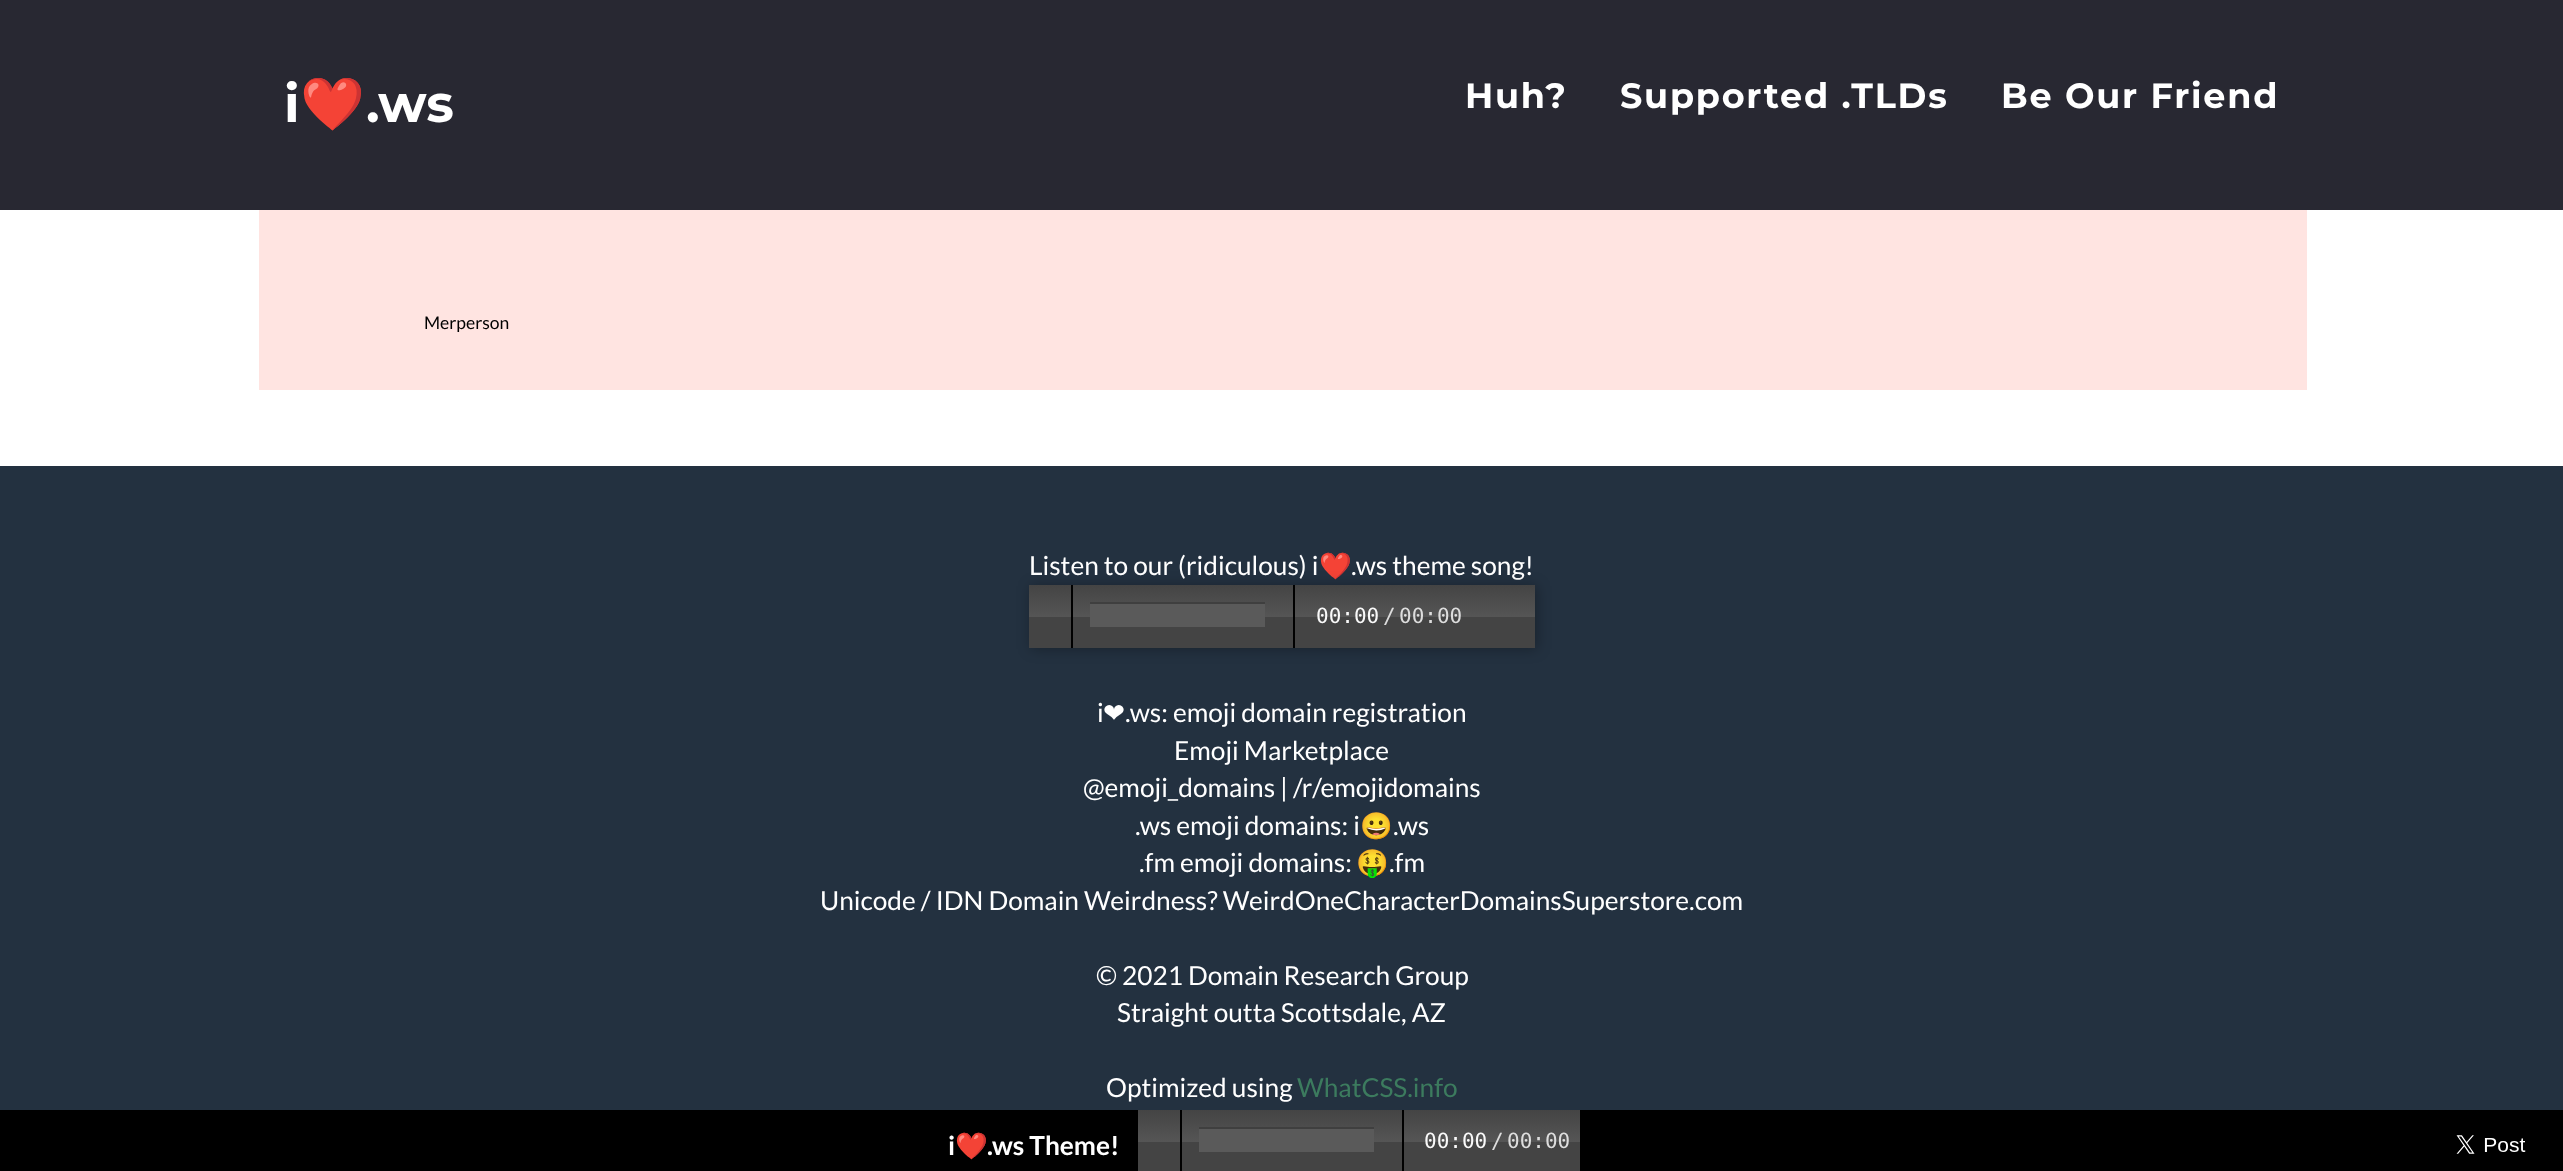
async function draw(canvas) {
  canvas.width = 2563
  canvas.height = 1171
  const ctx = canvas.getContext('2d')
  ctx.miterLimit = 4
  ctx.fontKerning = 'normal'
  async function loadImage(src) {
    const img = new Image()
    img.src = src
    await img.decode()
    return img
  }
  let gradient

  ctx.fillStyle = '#fff'
  ctx.fillRect(0, 0, 2563, 1171)
  ctx.fillStyle = '#282832'
  ctx.fillRect(0, 0, 2563, 210)
  ctx.font = 'bold 52px Montserrat'
  ctx.fillStyle = '#fff'
  ctx.fillText('i', 284, 122)
  ctx.font = 'bold 52px Noto Color Emoji'
  ctx.fillText('❤️', 300, 122)
  ctx.font = 'bold 52px Montserrat'
  ctx.fillText('.ws', 366, 122)
  ctx.letterSpacing = '1.75px'
  ctx.font = 'bold 35px Montserrat'
  ctx.fillText('Huh?', 1465, 108)
  ctx.fillText('Supported .TLDs', 1620, 108)
  ctx.fillText('Be Our Friend', 2001, 108)
  ctx.fillStyle = '#ffe4e1'
  ctx.fillRect(259, 210, 2048, 180)
  ctx.letterSpacing = '0px'
  ctx.font = '17.5px Lato'
  ctx.fillStyle = '#000'
  ctx.fillText('Merperson', 424, 329)
  ctx.fillStyle = '#233140'
  ctx.fillRect(0, 466, 2563, 644)
  ctx.font = '26.25px Lato'
  ctx.fillStyle = '#fff'
  ctx.fillText('Listen to our (ridiculous) i', 1029, 575)
  ctx.font = '26.25px Noto Color Emoji'
  ctx.fillText('❤️', 1319, 575)
  ctx.font = '26.25px Lato'
  ctx.fillText('.ws theme song!', 1351, 575)
  ctx.fillStyle = '#0000004d'
  ctx.filter = 'blur(7px)'
  ctx.beginPath()
  ctx.rect(1031, 586, 506, 63)
  ctx.fill()
  ctx.filter = 'none'
  gradient = ctx.createLinearGradient(1029, 585, 1029, 648)
  gradient.addColorStop(0, '#444')
  gradient.addColorStop(0.5, '#555')
  gradient.addColorStop(0.51, '#444')
  gradient.addColorStop(1, '#444')
  ctx.fillStyle = gradient
  ctx.fillRect(1029, 585, 506, 63)
  ctx.fillStyle = '#000'
  ctx.fillRect(1071, 585, 2, 63)
  ctx.fillStyle = '#5a5a5a'
  ctx.fillRect(1090, 604, 175, 23)
  ctx.fillStyle = '#3f3f3f'
  ctx.fillRect(1090, 602, 175, 2)
  ctx.fillStyle = '#000'
  ctx.fillRect(1293, 585, 2, 63)
  ctx.font = '21px DejaVu Sans Mono'
  ctx.fillStyle = '#f9f9f9'
  ctx.fillText('00:00', 1316, 623)
  ctx.fillStyle = '#ddd'
  ctx.fillText('/', 1383, 623)
  ctx.fillText('00:00', 1399, 623)
  ctx.font = '26.25px Lato'
  ctx.fillStyle = '#fff'
  ctx.fillText('i', 1097, 722)
  ctx.font = '26.25px DejaVu Sans'
  ctx.fillText('❤', 1103, 722)
  ctx.font = '26.25px Lato'
  ctx.fillText('.ws: emoji domain registration', 1125, 722)
  ctx.fillText('Emoji Marketplace', 1174, 760)
  ctx.fillText('@emoji_domains | /r/emojidomains', 1083, 797)
  ctx.fillText('.ws emoji domains: i', 1135, 835)
  ctx.font = '26.25px Noto Color Emoji'
  ctx.fillText('😀', 1360, 835)
  ctx.font = '26.25px Lato'
  ctx.fillText('.ws', 1393, 835)
  ctx.fillText('.fm emoji domains:', 1139, 872)
  ctx.font = '26.25px Noto Color Emoji'
  ctx.fillText('🤑', 1356, 872)
  ctx.font = '26.25px Lato'
  ctx.fillText('.fm', 1389, 872)
  ctx.fillText('Unicode / IDN Domain Weirdness? WeirdOneCharacterDomainsSuperstore.com', 820, 910)
  ctx.fillText('© 2021 Domain Research Group', 1096, 985)
  ctx.fillText('Straight outta Scottsdale, AZ', 1117, 1022)
  ctx.fillText('Optimized using', 1106, 1097)
  ctx.fillStyle = '#3c7b5e'
  ctx.fillText('WhatCSS.info', 1297, 1097)
  ctx.fillStyle = '#000'
  ctx.fillRect(0, 1110, 2563, 61)
  ctx.font = 'bold 26.25px Lato'
  ctx.fillStyle = '#fff'
  ctx.fillText('i', 948, 1155)
  ctx.font = 'bold 26.25px Noto Color Emoji'
  ctx.fillText('❤️', 955, 1155)
  ctx.font = 'bold 26.25px Lato'
  ctx.fillText('.ws Theme!', 987, 1155)
  gradient = ctx.createLinearGradient(1138, 1110, 1138, 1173)
  gradient.addColorStop(0, '#444')
  gradient.addColorStop(0.5, '#555')
  gradient.addColorStop(0.51, '#444')
  gradient.addColorStop(1, '#444')
  ctx.fillStyle = gradient
  ctx.fillRect(1138, 1110, 442, 61)
  ctx.fillStyle = '#000'
  ctx.fillRect(1180, 1110, 2, 61)
  ctx.fillStyle = '#5a5a5a'
  ctx.fillRect(1199, 1129, 175, 23)
  ctx.fillStyle = '#3f3f3f'
  ctx.fillRect(1199, 1127, 175, 2)
  ctx.fillStyle = '#000'
  ctx.fillRect(1402, 1110, 2, 61)
  ctx.font = '21px DejaVu Sans Mono'
  ctx.fillStyle = '#f9f9f9'
  ctx.fillText('00:00', 1424, 1148)
  ctx.fillStyle = '#ddd'
  ctx.fillText('/', 1491, 1148)
  ctx.fillText('00:00', 1507, 1148)
  ctx.drawImage(await loadImage('image0.png'), 2456, 1135, 70, 19)
}

draw(document.querySelector('canvas'))
